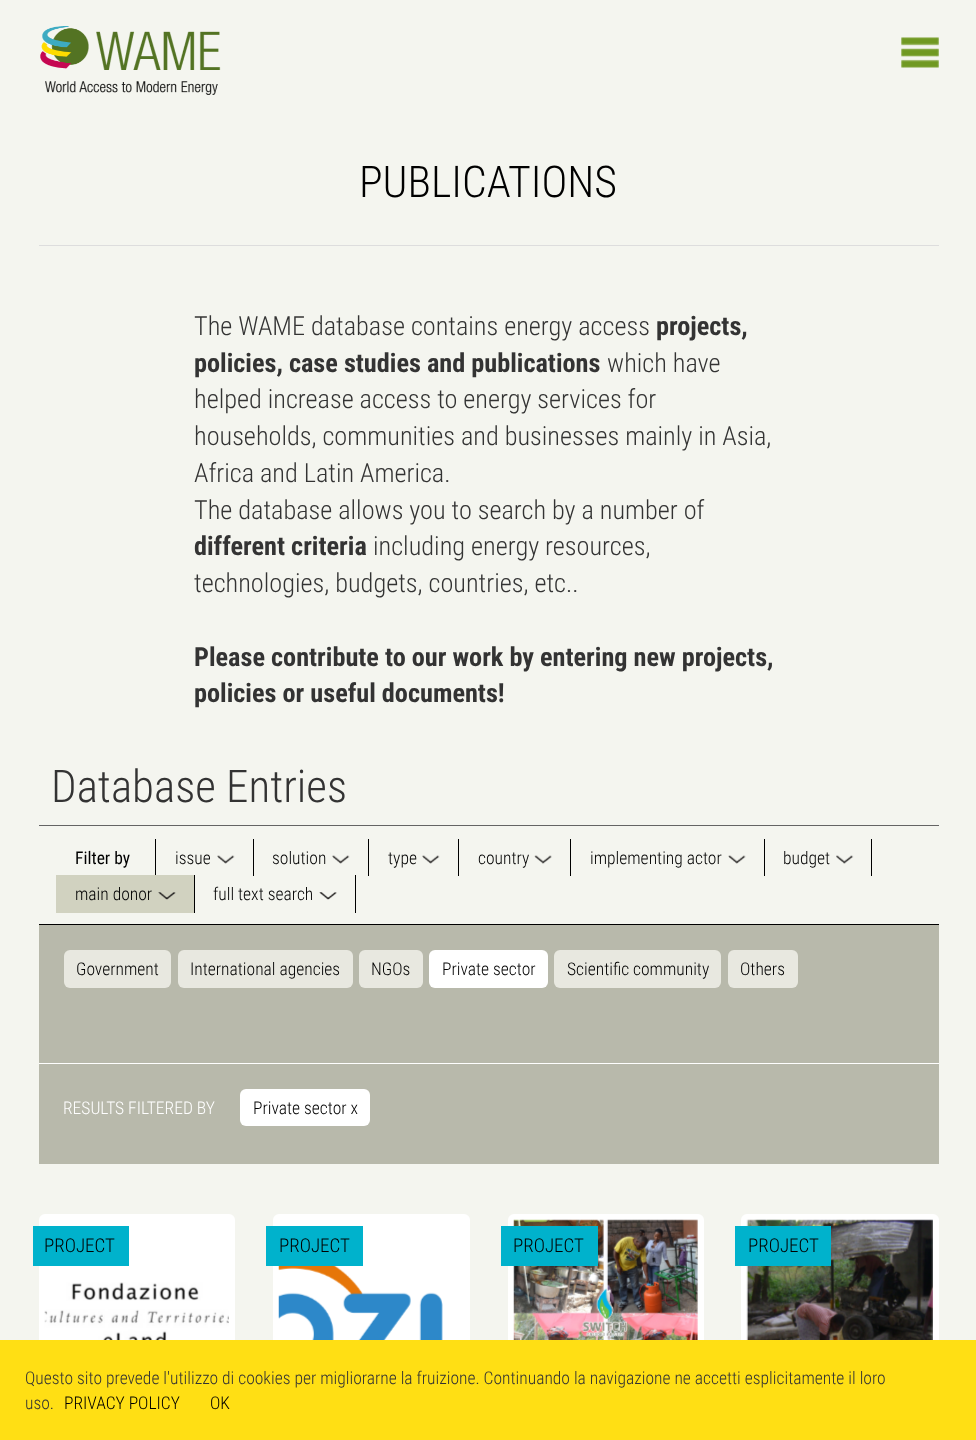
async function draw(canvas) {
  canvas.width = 976
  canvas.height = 1440
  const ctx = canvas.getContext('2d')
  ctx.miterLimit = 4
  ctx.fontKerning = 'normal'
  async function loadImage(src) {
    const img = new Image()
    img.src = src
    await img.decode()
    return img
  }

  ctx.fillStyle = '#f4f5ef'
  ctx.fillRect(0, 0, 976, 1440)
  ctx.drawImage(await loadImage('image0.png'), 40, 26, 181, 69)
  ctx.drawImage(await loadImage('image1.png'), 901, 37, 38, 31)
  ctx.fillStyle = '#ddd'
  ctx.fillRect(39, 245, 900, 1)
  ctx.font = '300 43.75px Roboto Condensed'
  ctx.fillStyle = '#000'
  ctx.fillText('PUBLICATIONS', 359, 197)
  ctx.font = '300 26.25px Roboto Condensed'
  ctx.fillStyle = '#333'
  ctx.fillText('The WAME database contains energy access', 194, 335)
  ctx.font = 'bold 26.25px Roboto Condensed'
  ctx.fillText('projects,', 656, 335)
  ctx.fillText('policies, case studies and publications', 194, 372)
  ctx.font = '300 26.25px Roboto Condensed'
  ctx.fillText('which have', 607, 372)
  ctx.fillText('helped increase access to energy services for', 194, 408)
  ctx.fillText('households, communities and businesses mainly in Asia,', 194, 445)
  ctx.fillText('Africa and Latin America.', 194, 482)
  ctx.fillText('The database allows you to search by a number of', 194, 519)
  ctx.font = 'bold 26.25px Roboto Condensed'
  ctx.fillText('different criteria', 194, 555)
  ctx.font = '300 26.25px Roboto Condensed'
  ctx.fillText('including energy resources,', 373, 555)
  ctx.fillText('technologies, budgets, countries, etc..', 194, 592)
  ctx.font = 'bold 26.25px Roboto Condensed'
  ctx.fillText('Please contribute to our work by entering new projects,', 194, 666)
  ctx.fillText('policies or useful documents!', 194, 702)
  ctx.font = '300 45px Roboto Condensed'
  ctx.fillText('Database Entries', 51, 802)
  ctx.fillStyle = '#646464'
  ctx.fillRect(39, 825, 900, 1)
  ctx.fillStyle = '#000'
  ctx.fillRect(39, 924, 900, 1)
  ctx.fillRect(155, 839, 1, 37)
  ctx.font = '17.5px Roboto Condensed'
  ctx.fillText('Filter by', 75, 864)
  ctx.fillRect(253, 839, 1, 37)
  ctx.font = '300 17.5px Roboto Condensed'
  ctx.fillText('issue', 175, 864)
  ctx.drawImage(await loadImage('image2.png'), 217, 855, 18, 9)
  ctx.fillRect(368, 839, 1, 37)
  ctx.fillText('solution', 272, 864)
  ctx.drawImage(await loadImage('image2.png'), 332, 855, 18, 9)
  ctx.fillRect(458, 839, 1, 37)
  ctx.fillText('type', 388, 864)
  ctx.drawImage(await loadImage('image2.png'), 422, 855, 18, 9)
  ctx.fillRect(570, 839, 1, 37)
  ctx.fillText('country', 478, 864)
  ctx.drawImage(await loadImage('image3.png'), 534, 855, 18, 9)
  ctx.fillRect(764, 839, 1, 37)
  ctx.fillText('implementing actor', 590, 864)
  ctx.drawImage(await loadImage('image4.png'), 728, 855, 18, 9)
  ctx.fillRect(871, 839, 1, 37)
  ctx.fillText('budget', 783, 864)
  ctx.drawImage(await loadImage('image5.png'), 836, 855, 18, 9)
  ctx.fillStyle = '#d1d2c0'
  ctx.fillRect(56, 875, 138, 38)
  ctx.fillStyle = '#000'
  ctx.fillRect(194, 875, 1, 38)
  ctx.fillText('main donor', 75, 900)
  ctx.drawImage(await loadImage('image6.png'), 158, 892, 18, 8)
  ctx.fillRect(355, 875, 1, 38)
  ctx.fillText('full text search', 213, 900)
  ctx.drawImage(await loadImage('image7.png'), 319, 892, 18, 8)
  ctx.fillStyle = '#b8b9ab'
  ctx.fillRect(39, 925, 900, 138)
  ctx.fillStyle = '#fff'
  ctx.fillRect(39, 1063, 900, 1)
  ctx.fillStyle = '#e8e8e0'
  ctx.beginPath()
  ctx.roundRect(64, 950, 107, 38, 6)
  ctx.fill()
  ctx.fillStyle = '#000'
  ctx.fillText('Government', 76, 975)
  ctx.fillStyle = '#e8e8e0'
  ctx.beginPath()
  ctx.roundRect(178, 950, 175, 38, 6)
  ctx.fill()
  ctx.fillStyle = '#000'
  ctx.fillText('International agencies', 190, 975)
  ctx.fillStyle = '#e8e8e0'
  ctx.beginPath()
  ctx.roundRect(359, 950, 64, 38, 6)
  ctx.fill()
  ctx.fillStyle = '#000'
  ctx.fillText('NGOs', 371, 975)
  ctx.fillStyle = '#fff'
  ctx.beginPath()
  ctx.roundRect(429, 950, 119, 38, 6)
  ctx.fill()
  ctx.fillStyle = '#000'
  ctx.fillText('Private sector', 442, 975)
  ctx.fillStyle = '#e8e8e0'
  ctx.beginPath()
  ctx.roundRect(554, 950, 167, 38, 6)
  ctx.fill()
  ctx.fillStyle = '#000'
  ctx.fillText('Scientific community', 567, 975)
  ctx.fillStyle = '#e8e8e0'
  ctx.beginPath()
  ctx.roundRect(728, 950, 70, 38, 6)
  ctx.fill()
  ctx.fillStyle = '#000'
  ctx.fillText('Others', 740, 975)
  ctx.fillStyle = '#b8b9ab'
  ctx.fillRect(39, 1064, 900, 100)
  ctx.fillStyle = '#fff'
  ctx.fillText('RESULTS FILTERED BY', 63, 1114)
  ctx.beginPath()
  ctx.roundRect(240, 1089, 130, 37, 6)
  ctx.fill()
  ctx.fillStyle = '#000'
  ctx.fillText('Private sector x', 253, 1114)
  ctx.fillStyle = '#fff'
  ctx.beginPath()
  ctx.roundRect(39, 1214, 196, 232, 6)
  ctx.fill()
  ctx.fillStyle = '#00b2cc'
  ctx.fillRect(33, 1226, 96, 40)
  ctx.font = '300 19px Roboto Condensed'
  ctx.fillStyle = '#000'
  ctx.fillText('PROJECT', 44, 1252)
  ctx.drawImage(await loadImage('image8.png'), 44, 1282, 185, 58)
  ctx.fillStyle = '#fff'
  ctx.beginPath()
  ctx.roundRect(273, 1214, 197, 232, 6)
  ctx.fill()
  ctx.fillStyle = '#00b2cc'
  ctx.fillRect(266, 1226, 97, 40)
  ctx.fillStyle = '#000'
  ctx.fillText('PROJECT', 279, 1252)
  ctx.drawImage(await loadImage('image9.png'), 278, 1266, 165, 74)
  ctx.fillStyle = '#fff'
  ctx.beginPath()
  ctx.roundRect(508, 1214, 196, 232, 6)
  ctx.fill()
  ctx.drawImage(await loadImage('image10.png'), 513, 1219, 185, 121)
  ctx.fillStyle = '#00b2cc'
  ctx.fillRect(501, 1226, 97, 40)
  ctx.fillStyle = '#000'
  ctx.fillText('PROJECT', 513, 1252)
  ctx.fillStyle = '#fff'
  ctx.beginPath()
  ctx.roundRect(741, 1214, 198, 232, 6)
  ctx.fill()
  ctx.drawImage(await loadImage('image11.png'), 746, 1219, 187, 121)
  ctx.fillStyle = '#00b2cc'
  ctx.fillRect(735, 1226, 96, 40)
  ctx.fillStyle = '#000'
  ctx.fillText('PROJECT', 748, 1252)
  ctx.fillStyle = '#ffdf14'
  ctx.fillRect(0, 1340, 976, 100)
  ctx.font = '300 17.5px Roboto Condensed'
  ctx.fillStyle = '#333'
  ctx.fillText('Questo sito prevede l\'utilizzo di cookies per migliorarne la fruizione. Continuando la navigazione ne accetti esplicitamente il loro', 25, 1384)
  ctx.fillText('uso.', 25, 1409)
  ctx.fillStyle = '#000'
  ctx.fillText('PRIVACY POLICY', 64, 1409)
  ctx.fillText('OK', 210, 1409)
}

draw(document.querySelector('canvas'))
